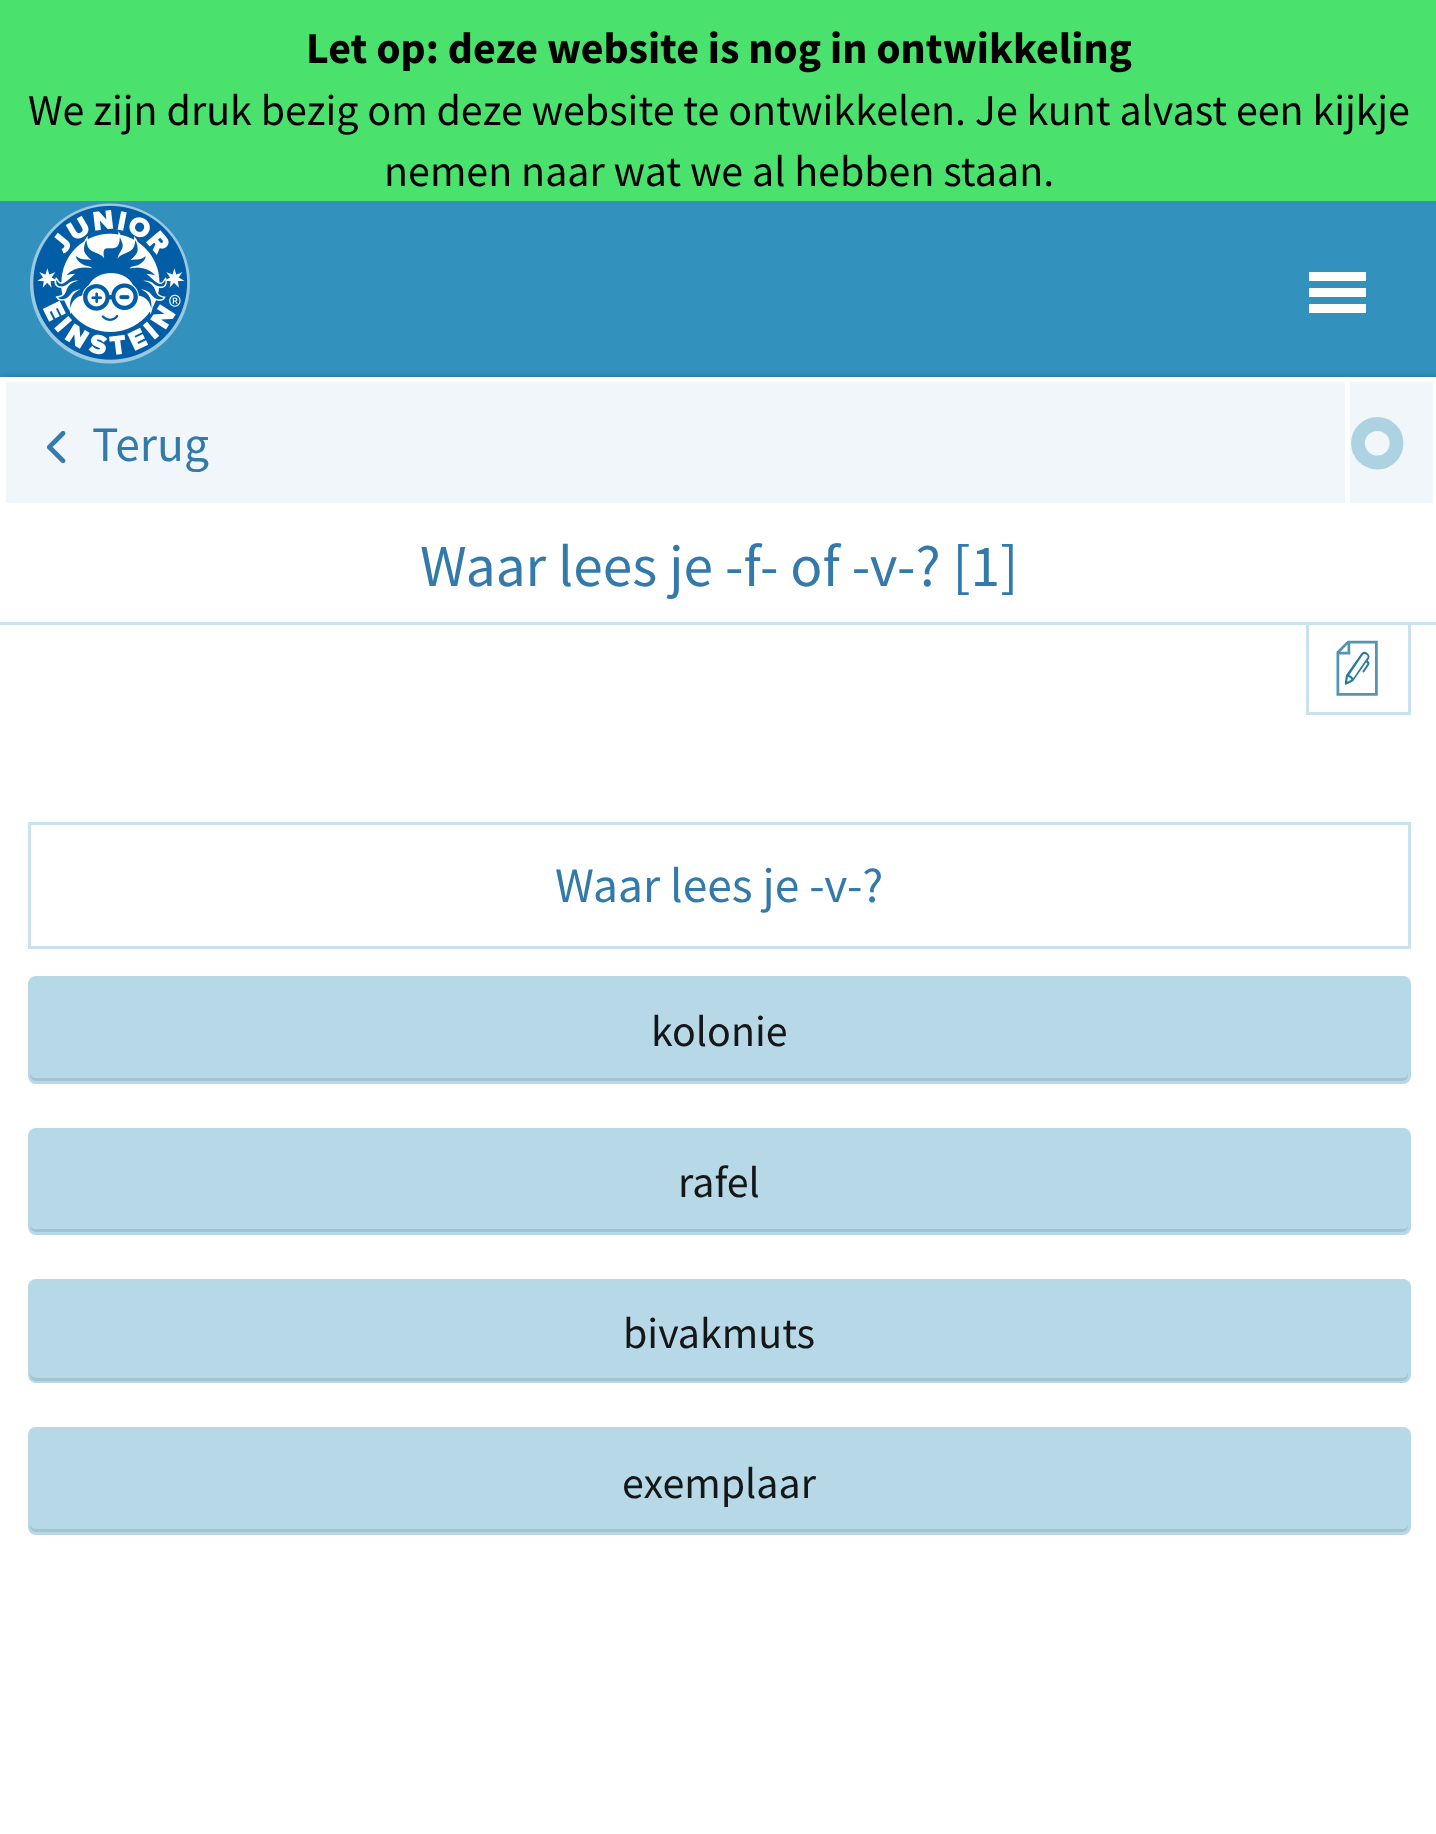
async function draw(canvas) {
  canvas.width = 1436
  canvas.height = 1834
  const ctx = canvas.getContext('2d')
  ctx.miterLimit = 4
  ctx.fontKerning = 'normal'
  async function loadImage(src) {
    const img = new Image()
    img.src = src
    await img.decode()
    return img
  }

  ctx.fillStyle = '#3391bd'
  ctx.fillRect(0, 0, 1436, 1834)
  ctx.fillStyle = '#4ae26d'
  ctx.fillRect(0, 0, 1436, 201)
  ctx.font = 'bold 44px Source Sans Pro'
  ctx.fillStyle = '#000'
  ctx.fillText('Let op: deze website is nog in ontwikkeling', 306, 63)
  ctx.font = '44px Source Sans Pro'
  ctx.fillText('We zijn druk bezig om deze website te ontwikkelen. Je kunt alvast een kijkje', 28, 125)
  ctx.fillText('nemen naar wat we al hebben staan.', 384, 186)
  ctx.drawImage(await loadImage('image0.png'), 30, 203, 160, 161)
  ctx.fillStyle = '#fff'
  ctx.beginPath()
  ctx.moveTo(1309, 272)
  ctx.lineTo(1366, 272)
  ctx.lineTo(1366, 281)
  ctx.lineTo(1309, 281)
  ctx.closePath()
  ctx.moveTo(1309, 288)
  ctx.lineTo(1366, 288)
  ctx.lineTo(1366, 297)
  ctx.lineTo(1309, 297)
  ctx.closePath()
  ctx.moveTo(1309, 304)
  ctx.lineTo(1366, 304)
  ctx.lineTo(1366, 313)
  ctx.lineTo(1309, 313)
  ctx.closePath()
  ctx.fill()
  ctx.fillStyle = '#00000080'
  ctx.filter = 'blur(4px)'
  ctx.beginPath()
  ctx.rect(3, 380, 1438, 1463)
  ctx.fill()
  ctx.filter = 'none'
  ctx.fillStyle = '#fff'
  ctx.fillRect(0, 377, 1436, 1457)
  ctx.fillStyle = '#c9e2ee'
  ctx.fillRect(0, 622, 1436, 3)
  ctx.fillStyle = '#f0f6f9'
  ctx.fillRect(6, 382, 1339, 121)
  ctx.drawImage(await loadImage('image1.png'), 47, 430, 19, 34)
  ctx.font = '49.5px Source Sans Pro'
  ctx.fillStyle = '#337aab'
  ctx.fillText('Terug', 92, 461)
  ctx.fillStyle = '#f0f6f9'
  ctx.fillRect(1350, 382, 83, 121)
  ctx.beginPath()
  ctx.moveTo(1358, 443)
  ctx.bezierCurveTo(1358, 432.5, 1366.5, 424, 1377.5, 424)
  ctx.bezierCurveTo(1388, 424, 1396.5, 432.5, 1396.5, 443)
  ctx.bezierCurveTo(1396.5, 454, 1388, 462.5, 1377.5, 462.5)
  ctx.bezierCurveTo(1366.5, 462.5, 1358, 454, 1358, 443)
  ctx.closePath()
  ctx.strokeStyle = '#add3e3'
  ctx.lineWidth = 13.8
  ctx.stroke()
  ctx.font = '59.4px Source Sans Pro'
  ctx.fillStyle = '#337aab'
  ctx.fillText('Waar lees je -f- of -v-? [1]', 420, 586)
  ctx.fillStyle = '#c9e2ee'
  ctx.fillRect(1408, 624, 3, 91)
  ctx.fillRect(1306, 712, 105, 3)
  ctx.fillRect(1306, 624, 3, 91)
  ctx.drawImage(await loadImage('image2.png'), 1336, 640, 42, 56)
  ctx.strokeStyle = '#c9e2ee'
  ctx.lineWidth = 3
  ctx.strokeRect(29.5, 823.5, 1380, 124)
  ctx.font = '49.5px Source Sans Pro'
  ctx.fillStyle = '#337aab'
  ctx.fillText('Waar lees je -v-?', 555, 902)
  ctx.fillStyle = '#b6d8e7'
  ctx.beginPath()
  ctx.roundRect(28, 976, 1383, 108, 8)
  ctx.fill()
  ctx.fillStyle = '#a4c2d0'
  ctx.beginPath()
  ctx.moveTo(30, 1072)
  ctx.lineTo(30, 1075)
  ctx.bezierCurveTo(30, 1078, 33, 1081, 36, 1081)
  ctx.lineTo(1402, 1081)
  ctx.bezierCurveTo(1405, 1081, 1408, 1078, 1408, 1075)
  ctx.lineTo(1408, 1072)
  ctx.bezierCurveTo(1408, 1076, 1406, 1078, 1402, 1078)
  ctx.lineTo(36, 1078)
  ctx.bezierCurveTo(33, 1078, 30, 1076, 30, 1072)
  ctx.closePath()
  ctx.fill()
  ctx.font = '44px Source Sans Pro'
  ctx.fillStyle = '#141617'
  ctx.fillText('kolonie', 651, 1046)
  ctx.fillStyle = '#b6d8e7'
  ctx.beginPath()
  ctx.roundRect(28, 1128, 1383, 107, 8)
  ctx.fill()
  ctx.fillStyle = '#a4c2d0'
  ctx.beginPath()
  ctx.moveTo(30, 1224)
  ctx.lineTo(30, 1226)
  ctx.bezierCurveTo(30, 1229, 33, 1232, 36, 1232)
  ctx.lineTo(1402, 1232)
  ctx.bezierCurveTo(1405, 1232, 1408, 1229, 1408, 1226)
  ctx.lineTo(1408, 1224)
  ctx.bezierCurveTo(1408, 1227, 1406, 1229, 1402, 1229)
  ctx.lineTo(36, 1229)
  ctx.bezierCurveTo(33, 1229, 30, 1227, 30, 1224)
  ctx.closePath()
  ctx.fill()
  ctx.fillStyle = '#141617'
  ctx.fillText('rafel', 678, 1197)
  ctx.fillStyle = '#b6d8e7'
  ctx.beginPath()
  ctx.roundRect(28, 1279, 1383, 104, 8)
  ctx.fill()
  ctx.fillStyle = '#a4c2d0'
  ctx.beginPath()
  ctx.moveTo(30, 1372)
  ctx.lineTo(30, 1375)
  ctx.bezierCurveTo(30, 1378, 33, 1381, 36, 1381)
  ctx.lineTo(1402, 1381)
  ctx.bezierCurveTo(1405, 1381, 1408, 1378, 1408, 1375)
  ctx.lineTo(1408, 1372)
  ctx.bezierCurveTo(1408, 1375, 1406, 1378, 1402, 1378)
  ctx.lineTo(36, 1378)
  ctx.bezierCurveTo(33, 1378, 30, 1375, 30, 1372)
  ctx.closePath()
  ctx.fill()
  ctx.fillStyle = '#141617'
  ctx.fillText('bivakmuts', 623, 1348)
  ctx.fillStyle = '#b6d8e7'
  ctx.beginPath()
  ctx.roundRect(28, 1427, 1383, 108, 8)
  ctx.fill()
  ctx.fillStyle = '#a4c2d0'
  ctx.beginPath()
  ctx.moveTo(30, 1524)
  ctx.lineTo(30, 1526)
  ctx.bezierCurveTo(30, 1529, 33, 1532, 36, 1532)
  ctx.lineTo(1402, 1532)
  ctx.bezierCurveTo(1405, 1532, 1408, 1529, 1408, 1526)
  ctx.lineTo(1408, 1524)
  ctx.bezierCurveTo(1408, 1527, 1406, 1529, 1402, 1529)
  ctx.lineTo(36, 1529)
  ctx.bezierCurveTo(33, 1529, 30, 1527, 30, 1524)
  ctx.closePath()
  ctx.fill()
  ctx.fillStyle = '#141617'
  ctx.fillText('exemplaar', 622, 1498)
}

draw(document.querySelector('canvas'))
